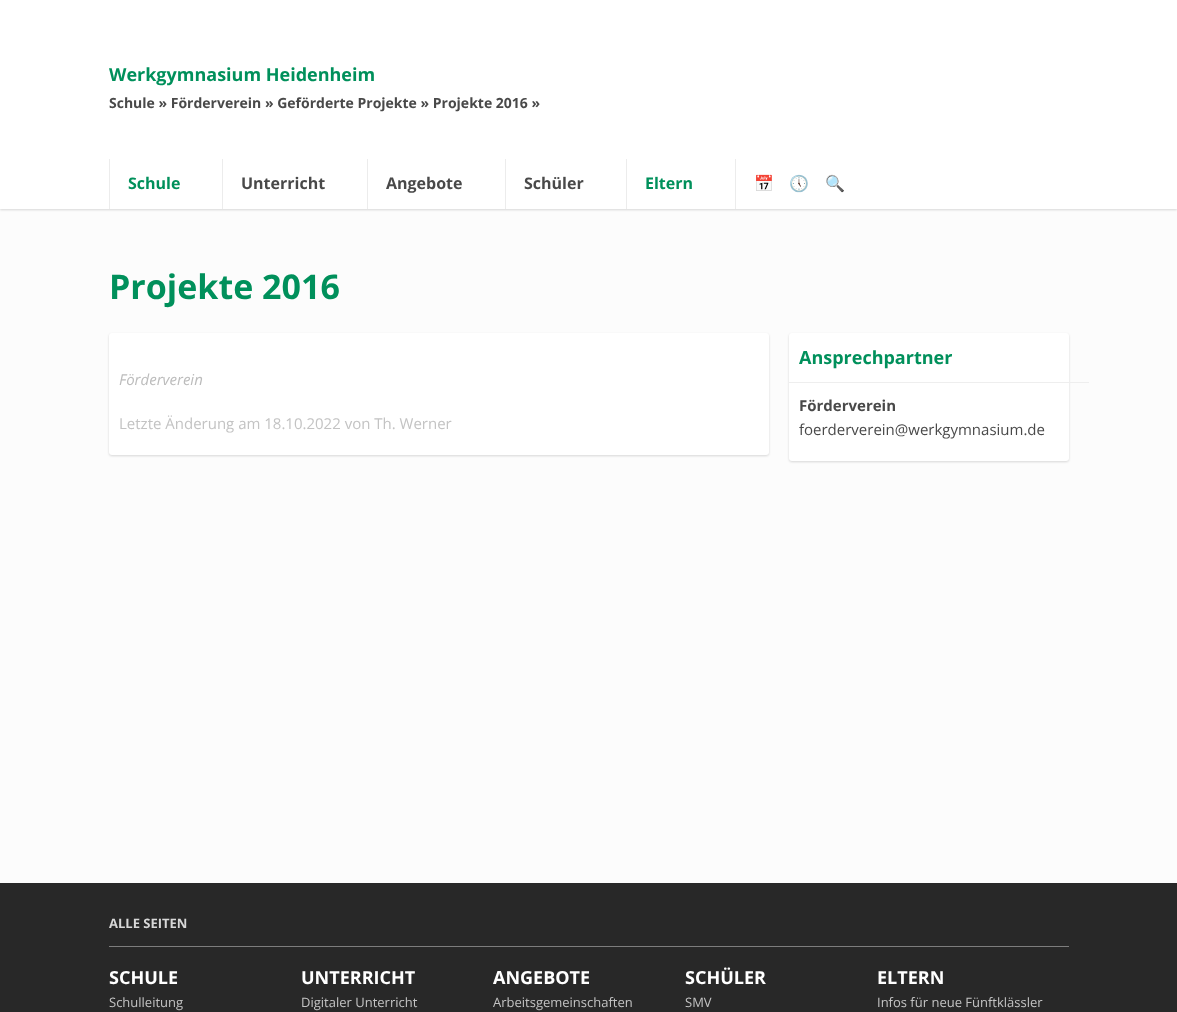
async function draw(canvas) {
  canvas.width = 1177
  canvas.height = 1012
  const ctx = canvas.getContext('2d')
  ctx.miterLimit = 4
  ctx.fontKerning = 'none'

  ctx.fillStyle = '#fcfcfc'
  ctx.fillRect(0, 0, 1177, 1012)
  ctx.fillStyle = '#00000026'
  ctx.filter = 'blur(1px)'
  ctx.beginPath()
  ctx.rect(0, 1, 1177, 209)
  ctx.fill()
  ctx.filter = 'none'
  ctx.fillStyle = '#fff'
  ctx.fillRect(0, 0, 1177, 209)
  ctx.font = 'bold 18px Open Sans'
  ctx.fillStyle = '#00905b'
  ctx.fillText('Werkgymnasium Heidenheim', 109, 81)
  ctx.font = 'bold 14px Open Sans'
  ctx.fillStyle = '#494949'
  ctx.fillText('Schule » Förderverein » Geförderte Projekte » Projekte 2016 »', 109, 108)
  ctx.fillStyle = '#ececec'
  ctx.fillRect(222, 159, 1, 50)
  ctx.fillRect(109, 159, 1, 50)
  ctx.font = 'bold 16px Open Sans'
  ctx.fillStyle = '#00905b'
  ctx.fillText('Schule', 128, 189)
  ctx.fillStyle = '#ececec'
  ctx.fillRect(367, 159, 1, 50)
  ctx.fillStyle = '#494949'
  ctx.fillText('Unterricht', 241, 189)
  ctx.fillStyle = '#ececec'
  ctx.fillRect(505, 159, 1, 50)
  ctx.fillStyle = '#494949'
  ctx.fillText('Angebote', 386, 189)
  ctx.fillStyle = '#ececec'
  ctx.fillRect(626, 159, 1, 50)
  ctx.fillStyle = '#494949'
  ctx.fillText('Schüler', 524, 189)
  ctx.fillStyle = '#ececec'
  ctx.fillRect(735, 159, 1, 50)
  ctx.fillStyle = '#00905b'
  ctx.fillText('Eltern', 645, 189)
  ctx.font = '16px Noto Color Emoji'
  ctx.fillStyle = '#494949'
  ctx.fillText('📅', 754, 189)
  ctx.fillText('🕔', 789, 189)
  ctx.fillText('🔍', 825, 189)
  ctx.font = 'bold 34px Open Sans'
  ctx.fillStyle = '#00905b'
  ctx.fillText('Projekte 2016', 109, 299)
  ctx.fillStyle = '#00000026'
  ctx.filter = 'blur(1px)'
  ctx.beginPath()
  ctx.roundRect(109, 334, 660, 122, 3)
  ctx.fill()
  ctx.filter = 'none'
  ctx.fillStyle = '#fff'
  ctx.beginPath()
  ctx.roundRect(109, 333, 660, 122, 3)
  ctx.fill()
  ctx.font = 'italic 15px Open Sans'
  ctx.fillStyle = '#bcbcbc'
  ctx.fillText('Förderverein', 119, 385)
  ctx.font = '15px Open Sans'
  ctx.fillStyle = '#c3c3c3'
  ctx.fillText('Letzte Änderung am 18.10.2022 von Th. Werner', 119, 429)
  ctx.fillStyle = '#00000026'
  ctx.filter = 'blur(1px)'
  ctx.beginPath()
  ctx.roundRect(789, 334, 280, 128, 3)
  ctx.fill()
  ctx.filter = 'none'
  ctx.fillStyle = '#fff'
  ctx.beginPath()
  ctx.roundRect(789, 333, 280, 128, 3)
  ctx.fill()
  ctx.fillStyle = '#eee'
  ctx.fillRect(789, 382, 300, 1)
  ctx.font = 'bold 18px Open Sans'
  ctx.fillStyle = '#00905b'
  ctx.fillText('Ansprechpartner', 799, 364)
  ctx.font = 'bold 15px Open Sans'
  ctx.fillStyle = '#494949'
  ctx.fillText('Förderverein', 799, 411)
  ctx.font = '15px Open Sans'
  ctx.fillText('foerderverein@werkgymnasium.de', 799, 435)
  ctx.fillStyle = '#282828'
  ctx.fillRect(0, 883, 1177, 129)
  ctx.fillStyle = '#7d7d7d'
  ctx.fillRect(109, 946, 960, 1)
  ctx.font = 'bold 13px Open Sans'
  ctx.fillStyle = '#d8d8d8'
  ctx.fillText('ALLE SEITEN', 109, 928)
  ctx.font = 'bold 18px Open Sans'
  ctx.fillStyle = '#fff'
  ctx.fillText('SCHULE', 109, 984)
  ctx.font = '13px Open Sans'
  ctx.fillStyle = '#c3c3c3'
  ctx.fillText('Schulleitung', 109, 1007)
  ctx.font = 'bold 18px Open Sans'
  ctx.fillStyle = '#fff'
  ctx.fillText('UNTERRICHT', 301, 984)
  ctx.font = '13px Open Sans'
  ctx.fillStyle = '#c3c3c3'
  ctx.fillText('Digitaler Unterricht', 301, 1007)
  ctx.font = 'bold 18px Open Sans'
  ctx.fillStyle = '#fff'
  ctx.fillText('ANGEBOTE', 493, 984)
  ctx.font = '13px Open Sans'
  ctx.fillStyle = '#c3c3c3'
  ctx.fillText('Arbeitsgemeinschaften', 493, 1007)
  ctx.font = 'bold 18px Open Sans'
  ctx.fillStyle = '#fff'
  ctx.fillText('SCHÜLER', 685, 984)
  ctx.font = '13px Open Sans'
  ctx.fillStyle = '#c3c3c3'
  ctx.fillText('SMV', 685, 1007)
  ctx.font = 'bold 18px Open Sans'
  ctx.fillStyle = '#fff'
  ctx.fillText('ELTERN', 877, 984)
  ctx.font = '13px Open Sans'
  ctx.fillStyle = '#c3c3c3'
  ctx.fillText('Infos für neue Fünftklässler', 877, 1007)
}

draw(document.querySelector('canvas'))
